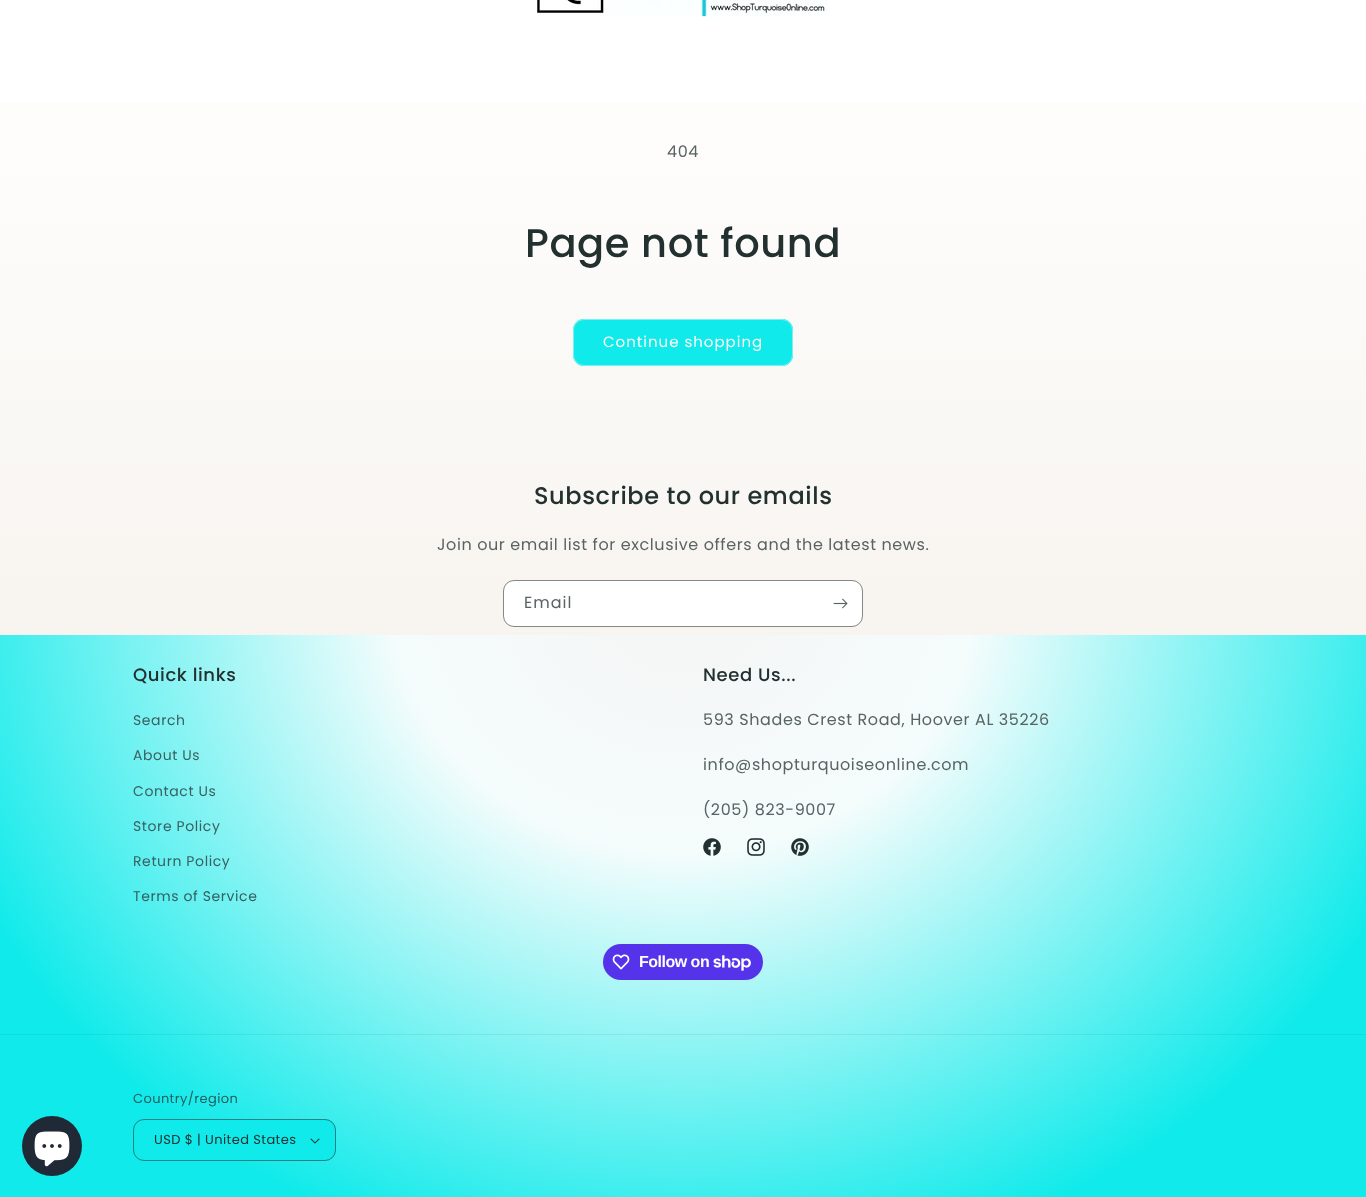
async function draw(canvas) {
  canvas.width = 1366
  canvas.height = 1197
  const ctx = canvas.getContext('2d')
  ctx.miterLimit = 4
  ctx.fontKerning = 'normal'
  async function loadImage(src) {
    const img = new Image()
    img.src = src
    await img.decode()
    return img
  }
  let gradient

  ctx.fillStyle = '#fff'
  ctx.fillRect(0, 0, 1366, 1197)
  gradient = ctx.createLinearGradient(683, 0, 683, 1197)
  gradient.addColorStop(0, '#fff')
  gradient.addColorStop(1, '#f1ebe2')
  ctx.fillStyle = gradient
  ctx.fillRect(0, 103, 1366, 532)
  ctx.drawImage(await loadImage('image0.png'), 537, 0, 291, 17)
  ctx.letterSpacing = '0.6px'
  ctx.font = '16px Poppins'
  ctx.fillStyle = '#596363'
  ctx.fillText('404', 667, 157)
  ctx.font = '500 40px Poppins'
  ctx.fillStyle = '#223030'
  ctx.fillText('Page not found', 525, 257)
  ctx.fillStyle = '#10eaea'
  ctx.beginPath()
  ctx.roundRect(573, 319, 220, 47, 11)
  ctx.fill()
  ctx.beginPath()
  ctx.roundRect(573.5, 319.5, 219, 46, 10.5)
  ctx.strokeStyle = '#10eaea'
  ctx.stroke()
  ctx.beginPath()
  ctx.roundRect(573.5, 319.5, 219, 46, 10.5)
  ctx.strokeStyle = '#fdfbf773'
  ctx.stroke()
  ctx.letterSpacing = '1px'
  ctx.font = '15px Poppins'
  ctx.fillStyle = '#fdfbf7'
  ctx.fillText('Continue shopping', 603, 347)
  ctx.letterSpacing = '0.6px'
  ctx.font = '500 24px Poppins'
  ctx.fillStyle = '#223030'
  ctx.fillText('Subscribe to our emails', 534, 504)
  ctx.font = '16px Poppins'
  ctx.fillStyle = '#596363'
  ctx.fillText('Join our email list for exclusive offers and the latest news.', 437, 550)
  ctx.fillStyle = '#fff'
  ctx.beginPath()
  ctx.roundRect(504, 581, 358, 45, 10)
  ctx.fill()
  ctx.beginPath()
  ctx.roundRect(503.5, 580.5, 359, 46, 10.5)
  ctx.strokeStyle = '#2230308c'
  ctx.stroke()
  ctx.letterSpacing = '1px'
  ctx.fillStyle = '#596363'
  ctx.fillText('Email', 524, 608)
  ctx.drawImage(await loadImage('image1.png'), 833, 598, 15, 11)
  gradient = ctx.createRadialGradient(683, 683.96, 0, 683, 683.96, 966)
  gradient.addColorStop(0, '#f5f5f5')
  gradient.addColorStop(0.3, '#f5fcfc')
  gradient.addColorStop(0.81, '#10eaea')
  ctx.fillStyle = gradient
  ctx.beginPath()
  ctx.rect(0, 635, 1366, 562)
  ctx.save()
  ctx.clip()
  ctx.scale(1, 846 / 966)
  ctx.fillRect(0, 0, 1366, 1367)
  ctx.restore()
  ctx.fillStyle = '#202a36'
  ctx.beginPath()
  ctx.arc(52, 1146, 30, 0, 2 * Math.PI)
  ctx.fill()
  ctx.drawImage(await loadImage('image2.png'), 34, 1131, 36, 36)
  gradient = ctx.createRadialGradient(683, 683.96, 0, 683, 683.96, 966)
  gradient.addColorStop(0, '#e4e5e5')
  gradient.addColorStop(0.3, '#e4ecec')
  gradient.addColorStop(0.81, '#11dbdb')
  ctx.fillStyle = gradient
  ctx.beginPath()
  ctx.rect(0, 1034, 1366, 1)
  ctx.save()
  ctx.clip()
  ctx.scale(1, 846 / 966)
  ctx.fillRect(0, 0, 1366, 1367)
  ctx.restore()
  ctx.letterSpacing = '0.6px'
  ctx.font = '500 18px Poppins'
  ctx.fillStyle = '#223030'
  ctx.fillText('Quick links', 133, 681)
  ctx.font = '14px Poppins'
  ctx.fillStyle = '#396161'
  ctx.fillText('Search', 133, 725)
  ctx.fillText('About Us', 133, 760)
  ctx.fillText('Contact Us', 133, 796)
  ctx.fillText('Store Policy', 133, 831)
  ctx.fillText('Return Policy', 133, 866)
  ctx.fillStyle = '#336060'
  ctx.fillText('Terms of Service', 133, 901)
  ctx.font = '500 18px Poppins'
  ctx.fillStyle = '#223030'
  ctx.fillText('Need Us...', 703, 681)
  ctx.font = '16px Poppins'
  ctx.fillStyle = '#596363'
  ctx.fillText('593 Shades Crest Road, Hoover AL 35226', 703, 725)
  ctx.fillText('info@shopturquoiseonline.com', 703, 770)
  ctx.fillText('(205) 823-9007', 703, 815)
  ctx.drawImage(await loadImage('image3.png'), 703, 838, 18, 18)
  ctx.drawImage(await loadImage('image4.png'), 747, 838, 18, 18)
  ctx.drawImage(await loadImage('image5.png'), 791, 838, 18, 18)
  ctx.fillStyle = '#5433eb'
  ctx.beginPath()
  ctx.roundRect(603, 944, 160, 36, 18)
  ctx.fill()
  ctx.drawImage(await loadImage('image6.png'), 612, 954, 18, 16)
  ctx.letterSpacing = '-0.5px'
  ctx.font = 'bold 16px Liberation Sans'
  ctx.fillStyle = '#fff'
  ctx.fillText('Follow on', 639, 967)
  ctx.drawImage(await loadImage('image7.png'), 713, 955, 38, 16)
  ctx.letterSpacing = '0.4px'
  ctx.font = '13px Poppins'
  ctx.fillStyle = '#215f5f'
  ctx.fillText('Country/region', 133, 1103)
  ctx.fillStyle = '#10eaea'
  ctx.beginPath()
  ctx.roundRect(133, 1119, 203, 42, 11)
  ctx.fill()
  ctx.drawImage(await loadImage('image8.png'), 310, 1138, 10, 6)
  ctx.beginPath()
  ctx.roundRect(133.5, 1119.5, 202, 41, 10.5)
  ctx.stroke()
  ctx.fillStyle = '#223030'
  ctx.fillText('USD $ | United States', 154, 1144)
}

draw(document.querySelector('canvas'))
